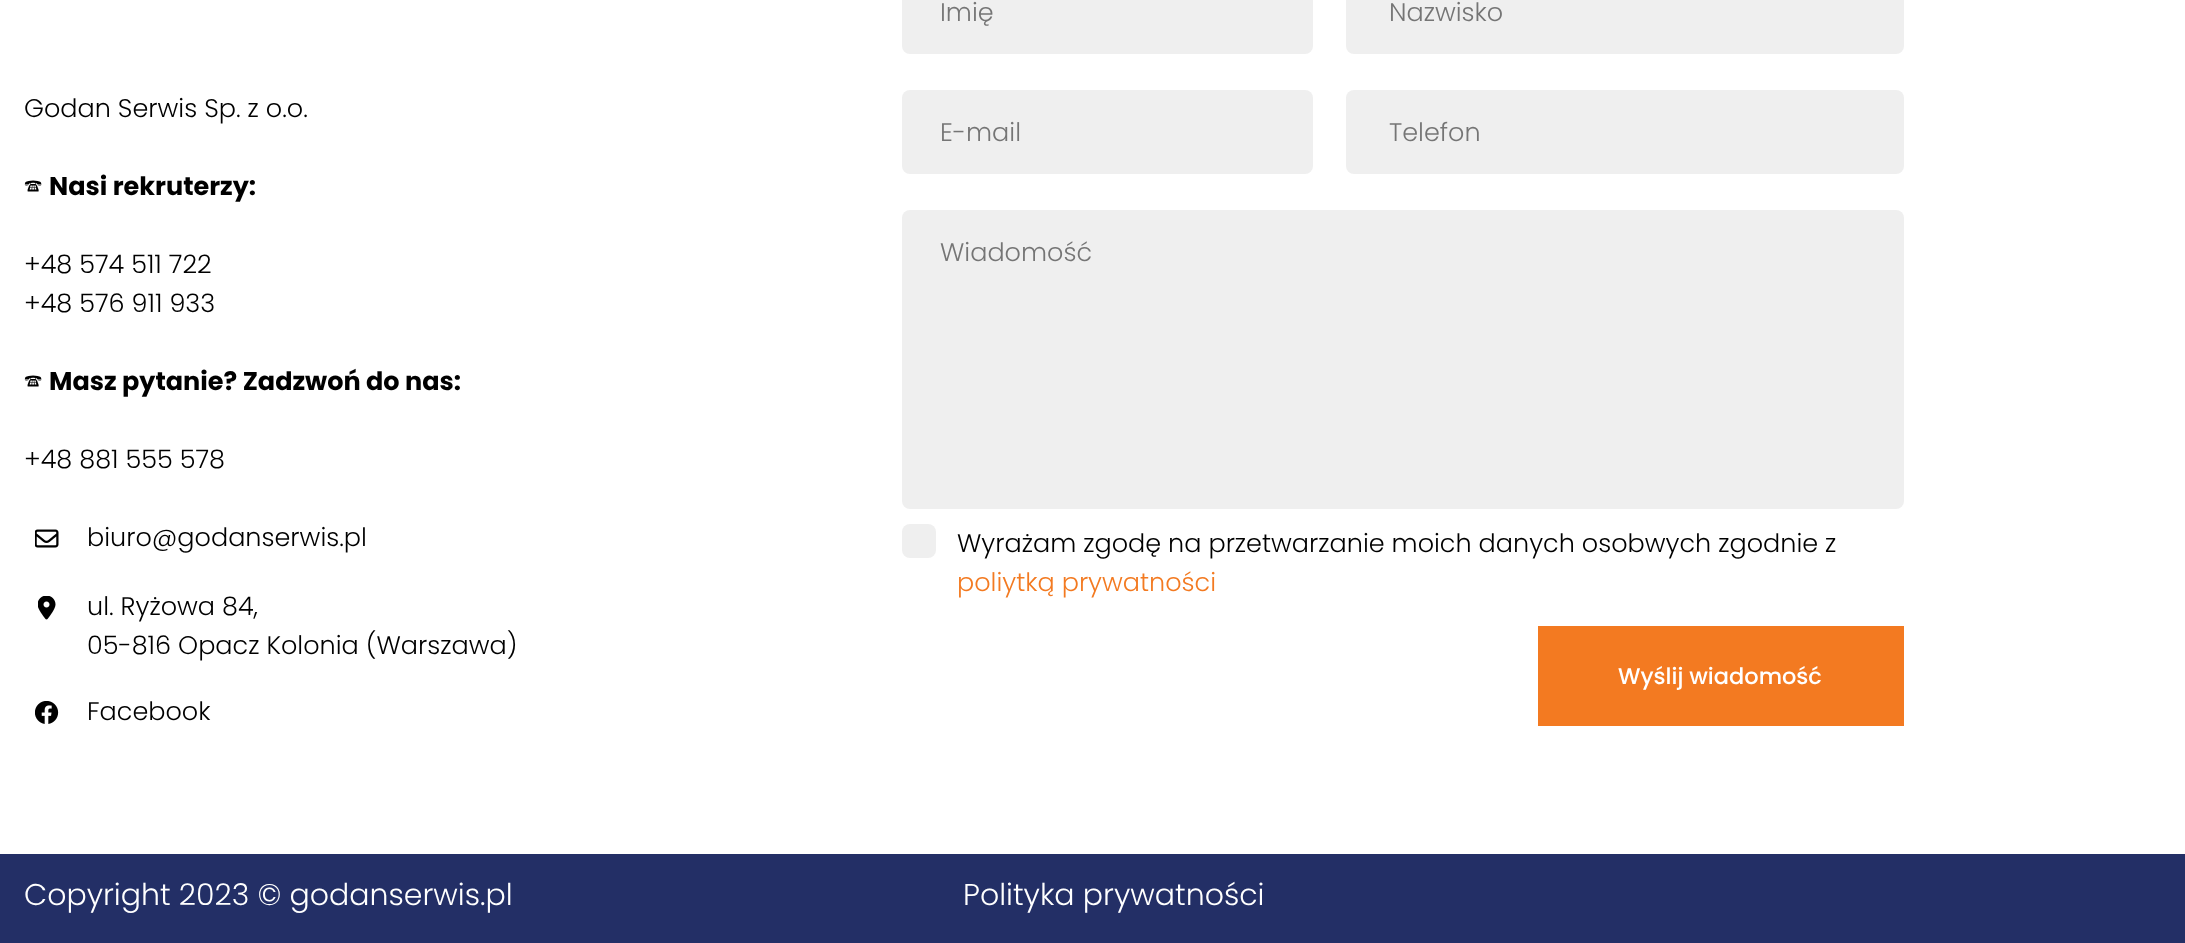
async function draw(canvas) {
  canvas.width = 2185
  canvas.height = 943
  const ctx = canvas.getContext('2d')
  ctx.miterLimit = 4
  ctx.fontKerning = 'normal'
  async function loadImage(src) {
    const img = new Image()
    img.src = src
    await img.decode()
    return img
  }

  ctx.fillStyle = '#fff'
  ctx.fillRect(0, 0, 2185, 943)
  ctx.font = '300 25.5px Poppins'
  ctx.fillStyle = '#000'
  ctx.fillText('Godan Serwis Sp. z o.o.', 24, 117)
  ctx.font = '25.5px FreeSerif'
  ctx.fillText('🕿', 24, 195)
  ctx.font = 'bold 25.5px Poppins'
  ctx.fillText('Nasi rekruterzy:', 49, 195)
  ctx.font = '300 25.5px Poppins'
  ctx.fillText('+48 574 511 722', 24, 273)
  ctx.fillText('+48 576 911 933', 24, 312)
  ctx.font = '25.5px FreeSerif'
  ctx.fillText('🕿', 24, 390)
  ctx.font = 'bold 25.5px Poppins'
  ctx.fillText('Masz pytanie? Zadzwoń do nas:', 49, 390)
  ctx.font = '300 25.5px Poppins'
  ctx.fillText('+48 881 555 578', 24, 468)
  ctx.drawImage(await loadImage('image0.png'), 35, 529, 24, 19)
  ctx.fillText('biuro@godanserwis.pl', 87, 546)
  ctx.drawImage(await loadImage('image1.png'), 38, 596, 18, 24)
  ctx.fillText('ul. Ryżowa 84,', 87, 615)
  ctx.fillText('05-816 Opacz Kolonia (Warszawa)', 87, 654)
  ctx.drawImage(await loadImage('image2.png'), 35, 701, 24, 23)
  ctx.fillText('Facebook', 87, 720)
  ctx.fillStyle = '#efefef'
  ctx.beginPath()
  ctx.roundRect(902, -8, 411, 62, 8)
  ctx.fill()
  ctx.fillStyle = '#757575'
  ctx.fillText('Imię', 940, 21)
  ctx.fillStyle = '#efefef'
  ctx.beginPath()
  ctx.roundRect(1346, -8, 558, 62, 8)
  ctx.fill()
  ctx.fillStyle = '#757575'
  ctx.fillText('Nazwisko', 1389, 21)
  ctx.fillStyle = '#efefef'
  ctx.beginPath()
  ctx.roundRect(902, 90, 411, 84, 8)
  ctx.fill()
  ctx.fillStyle = '#757575'
  ctx.fillText('E-mail', 940, 141)
  ctx.fillStyle = '#efefef'
  ctx.beginPath()
  ctx.roundRect(1346, 90, 558, 84, 8)
  ctx.fill()
  ctx.fillStyle = '#757575'
  ctx.fillText('Telefon', 1389, 141)
  ctx.fillStyle = '#efefef'
  ctx.beginPath()
  ctx.roundRect(902, 210, 1002, 299, 8)
  ctx.fill()
  ctx.fillStyle = '#757575'
  ctx.fillText('Wiadomość', 940, 261)
  ctx.fillStyle = '#efefef'
  ctx.beginPath()
  ctx.roundRect(902, 524, 34, 34, 8)
  ctx.fill()
  ctx.fillStyle = '#000'
  ctx.fillText('Wyrażam zgodę na przetwarzanie moich danych osobwych zgodnie z', 957, 552)
  ctx.fillStyle = '#f37a21'
  ctx.fillText('poliytką prywatności', 957, 591)
  ctx.fillRect(1538, 626, 366, 100)
  ctx.font = '500 22.5px Poppins'
  ctx.fillStyle = '#fff'
  ctx.fillText('Wyślij wiadomość', 1618, 684)
  ctx.fillStyle = '#232f66'
  ctx.fillRect(0, 854, 2185, 89)
  ctx.font = '300 30px Poppins'
  ctx.fillStyle = '#fff'
  ctx.fillText('Copyright 2023 © godanserwis.pl', 24, 905)
  ctx.fillText('Polityka prywatności', 963, 905)
}

draw(document.querySelector('canvas'))
